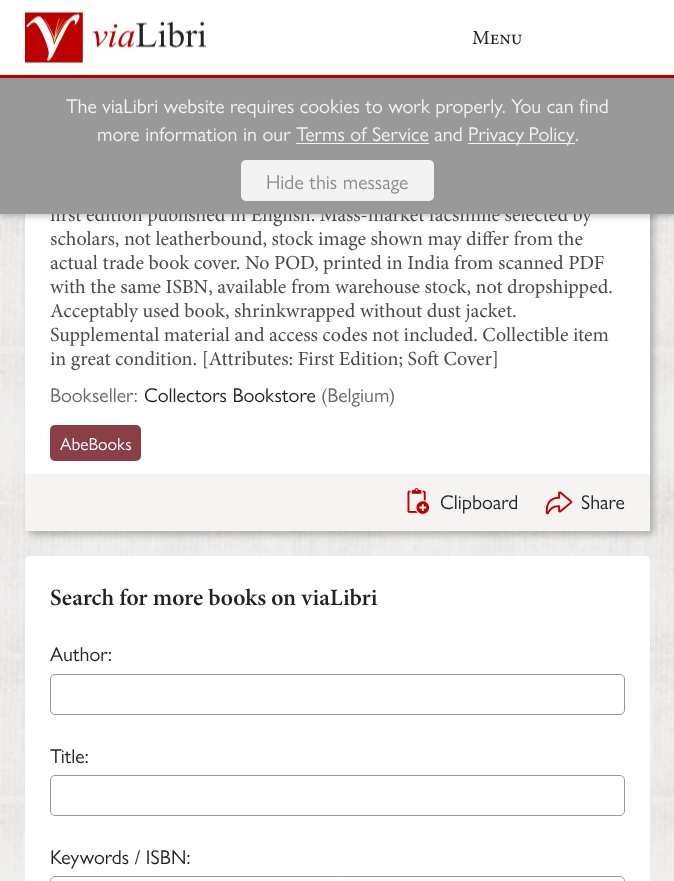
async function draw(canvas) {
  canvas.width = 674
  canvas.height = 881
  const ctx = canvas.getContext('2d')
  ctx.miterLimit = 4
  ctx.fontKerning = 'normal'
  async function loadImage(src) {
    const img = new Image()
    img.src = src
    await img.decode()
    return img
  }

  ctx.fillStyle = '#fff'
  ctx.fillRect(0, 0, 674, 881)
  ctx.drawImage(await loadImage('image0.png'), 0, 214, 674, 667)
  ctx.fillStyle = '#00000040'
  ctx.filter = 'blur(3px)'
  ctx.beginPath()
  ctx.roundRect(29, 10, 625, 525, 5)
  ctx.fill()
  ctx.filter = 'none'
  ctx.fillStyle = '#fff'
  ctx.fillRect(25, 214, 625, 260)
  ctx.fillStyle = '#00000040'
  ctx.filter = 'blur(3px)'
  ctx.beginPath()
  ctx.rect(0, 3, 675, 213)
  ctx.fill()
  ctx.filter = 'none'
  ctx.fillStyle = '#fff'
  ctx.fillRect(0, 0, 674, 75)
  ctx.fillStyle = '#bc0000'
  ctx.fillRect(0, 75, 674, 3)
  ctx.drawImage(await loadImage('image1.png'), 25, 12, 181, 51)
  ctx.font = '20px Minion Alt'
  ctx.fillStyle = '#232323'
  ctx.fillText('Menu', 472, 44)
  ctx.font = '20px Minion'
  ctx.fillStyle = '#4a4a4a'
  ctx.fillText('first edition published in English. Mass-market facsimile selected by', 50, 221)
  ctx.fillStyle = '#999'
  ctx.fillRect(0, 78, 674, 136)
  ctx.font = '20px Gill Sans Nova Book'
  ctx.fillStyle = '#f3f3f3'
  ctx.fillText('The viaLibri website requires cookies to work properly. You can find', 66, 113)
  ctx.fillText('more information in our Terms of Service and', 97, 141)
  ctx.fillRect(296, 143, 133, 1)
  ctx.fillRect(468, 143, 107, 1)
  ctx.wordSpacing = '-1px'
  ctx.fillText('Privacy Policy', 468, 141)
  ctx.wordSpacing = '0px'
  ctx.fillText('.', 575, 141)
  ctx.beginPath()
  ctx.roundRect(241, 160, 193, 41, 5)
  ctx.fill()
  ctx.fillStyle = '#8c8c8c'
  ctx.fillText('Hide this message', 266, 189)
  ctx.font = '20px Minion'
  ctx.fillStyle = '#4a4a4a'
  ctx.fillText('scholars, not leatherbound, stock image shown may differ from the', 50, 245)
  ctx.fillText('actual trade book cover. No POD, printed in India from scanned PDF', 50, 269)
  ctx.fillText('with the same ISBN, available from warehouse stock, not dropshipped.', 50, 293)
  ctx.fillText('Acceptably used book, shrinkwrapped without dust jacket.', 50, 317)
  ctx.fillText('Supplemental material and access codes not included. Collectible item', 50, 341)
  ctx.fillText('in great condition. [Attributes: First Edition; Soft Cover]', 50, 365)
  ctx.font = '20px Gill Sans Nova Book'
  ctx.fillStyle = '#686868'
  ctx.fillText('Bookseller:', 50, 402)
  ctx.fillStyle = '#232323'
  ctx.fillText('Collectors Bookstore', 144, 402)
  ctx.fillStyle = '#686868'
  ctx.fillText('(Belgium', 321, 402)
  ctx.fillText(')', 389, 402)
  ctx.fillStyle = '#893f45'
  ctx.beginPath()
  ctx.roundRect(50, 425, 91, 36, 5)
  ctx.fill()
  ctx.font = '17.5px Gill Sans Nova Book'
  ctx.fillStyle = '#fff'
  ctx.fillText('AbeBooks', 60, 450)
  ctx.fillStyle = '#f5f4f3'
  ctx.fillRect(25, 474, 625, 57)
  ctx.drawImage(await loadImage('image2.png'), 407, 488, 23, 26)
  ctx.font = '20px Gill Sans Nova Book'
  ctx.fillStyle = '#232323'
  ctx.fillText('Clipboard', 440, 509)
  ctx.drawImage(await loadImage('image3.png'), 545, 491, 28, 24)
  ctx.fillText('Share', 581, 509)
  ctx.fillStyle = '#fff'
  ctx.beginPath()
  ctx.roundRect(25, 556, 625, 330, 5)
  ctx.fill()
  ctx.font = '600 23.4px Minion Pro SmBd'
  ctx.fillStyle = '#232323'
  ctx.fillText('Search for more books on viaLibri', 50, 605)
  ctx.font = '20px Gill Sans Nova Book'
  ctx.fillText('Author:', 50, 661)
  ctx.beginPath()
  ctx.roundRect(50.5, 674.5, 574, 40, 4.5)
  ctx.strokeStyle = '#979797'
  ctx.stroke()
  ctx.fillText('Title:', 50, 763)
  ctx.beginPath()
  ctx.roundRect(50.5, 775.5, 574, 40, 4.5)
  ctx.stroke()
  ctx.fillText('Keywords / ISBN:', 50, 864)
  ctx.beginPath()
  ctx.roundRect(50.5, 876.5, 574, 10, 4.5)
  ctx.stroke()
}

draw(document.querySelector('canvas'))
